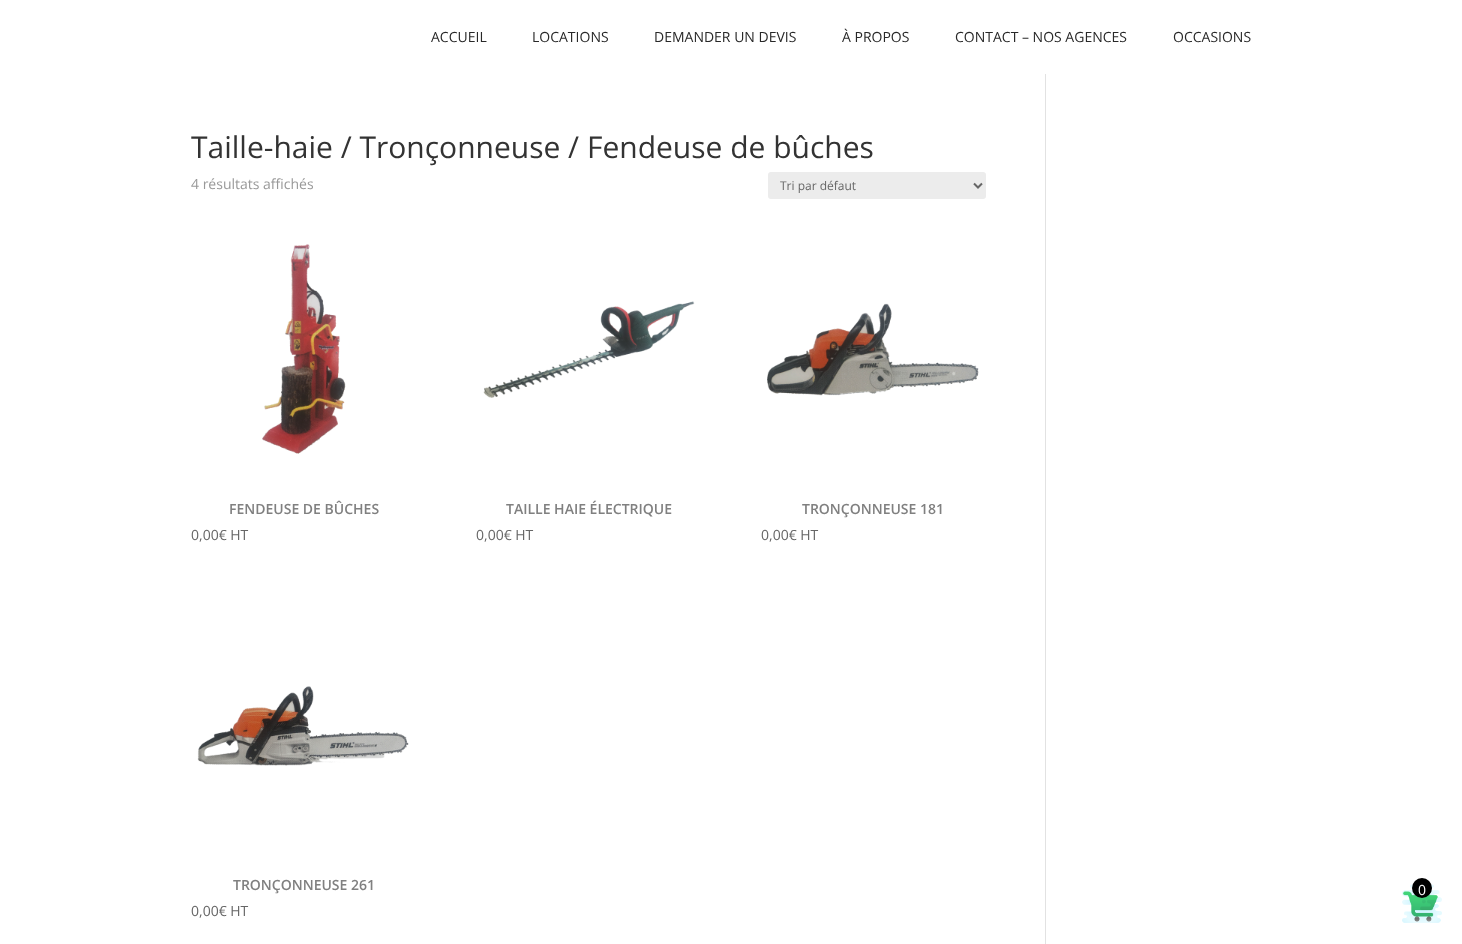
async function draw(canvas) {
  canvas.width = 1462
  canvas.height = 944
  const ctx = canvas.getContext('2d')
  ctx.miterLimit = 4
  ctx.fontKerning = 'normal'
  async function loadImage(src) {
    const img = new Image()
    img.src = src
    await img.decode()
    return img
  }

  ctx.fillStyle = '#fff'
  ctx.fillRect(0, 0, 1462, 944)
  ctx.font = '14px Open Sans'
  ctx.fillStyle = '#282828'
  ctx.fillText('ACCUEIL', 431, 42)
  ctx.fillText('LOCATIONS', 532, 42)
  ctx.fillText('DEMANDER UN DEVIS', 654, 42)
  ctx.fillText('À PROPOS', 842, 42)
  ctx.fillText('CONTACT – NOS AGENCES', 955, 42)
  ctx.fillText('OCCASIONS', 1173, 42)
  ctx.font = '30px Open Sans'
  ctx.fillStyle = '#333'
  ctx.fillText('Taille-haie / Tronçonneuse / Fendeuse de bûches', 191, 158)
  ctx.font = '14px Open Sans'
  ctx.fillStyle = '#999'
  ctx.fillText('4 résultats affichés', 191, 189)
  ctx.fillStyle = '#ececec'
  ctx.beginPath()
  ctx.roundRect(768, 172, 218, 27, 3)
  ctx.fill()
  ctx.beginPath()
  ctx.moveTo(974, 183.5)
  ctx.lineTo(978, 187.5)
  ctx.lineTo(982, 183.5)
  ctx.strokeStyle = '#666'
  ctx.lineWidth = 2
  ctx.stroke()
  ctx.font = '12px Open Sans'
  ctx.fillStyle = '#666'
  ctx.fillText('Tri par défaut', 780, 190)
  ctx.drawImage(await loadImage('image0.png'), 262, 244, 84, 210)
  ctx.font = '600 14px Open Sans'
  ctx.fillStyle = '#808080'
  ctx.fillText('FENDEUSE DE BÛCHES', 229, 514)
  ctx.font = '14px Open Sans'
  ctx.fillStyle = '#666'
  ctx.fillText('0,00€ HT', 191, 540)
  ctx.drawImage(await loadImage('image1.png'), 483, 301, 212, 97)
  ctx.font = '600 14px Open Sans'
  ctx.fillStyle = '#808080'
  ctx.fillText('TAILLE HAIE ÉLECTRIQUE', 506, 514)
  ctx.font = '14px Open Sans'
  ctx.fillStyle = '#666'
  ctx.fillText('0,00€ HT', 476, 540)
  ctx.drawImage(await loadImage('image2.png'), 767, 303, 212, 93)
  ctx.font = '600 14px Open Sans'
  ctx.fillStyle = '#808080'
  ctx.fillText('TRONÇONNEUSE 181', 802, 514)
  ctx.font = '14px Open Sans'
  ctx.fillStyle = '#666'
  ctx.fillText('0,00€ HT', 761, 540)
  ctx.drawImage(await loadImage('image3.png'), 197, 686, 212, 80)
  ctx.font = '600 14px Open Sans'
  ctx.fillStyle = '#808080'
  ctx.fillText('TRONÇONNEUSE 261', 233, 890)
  ctx.font = '14px Open Sans'
  ctx.fillStyle = '#666'
  ctx.fillText('0,00€ HT', 191, 916)
  ctx.fillStyle = '#e2e2e2'
  ctx.fillRect(1045, 74, 1, 870)
  ctx.drawImage(await loadImage('image4.png'), 1402, 884, 40, 39)
  ctx.fillStyle = '#000'
  ctx.beginPath()
  ctx.arc(1422, 888, 10, 0, 2 * Math.PI)
  ctx.fill()
  ctx.fillStyle = '#fff'
  ctx.fillText('0', 1418, 895)
}

draw(document.querySelector('canvas'))
